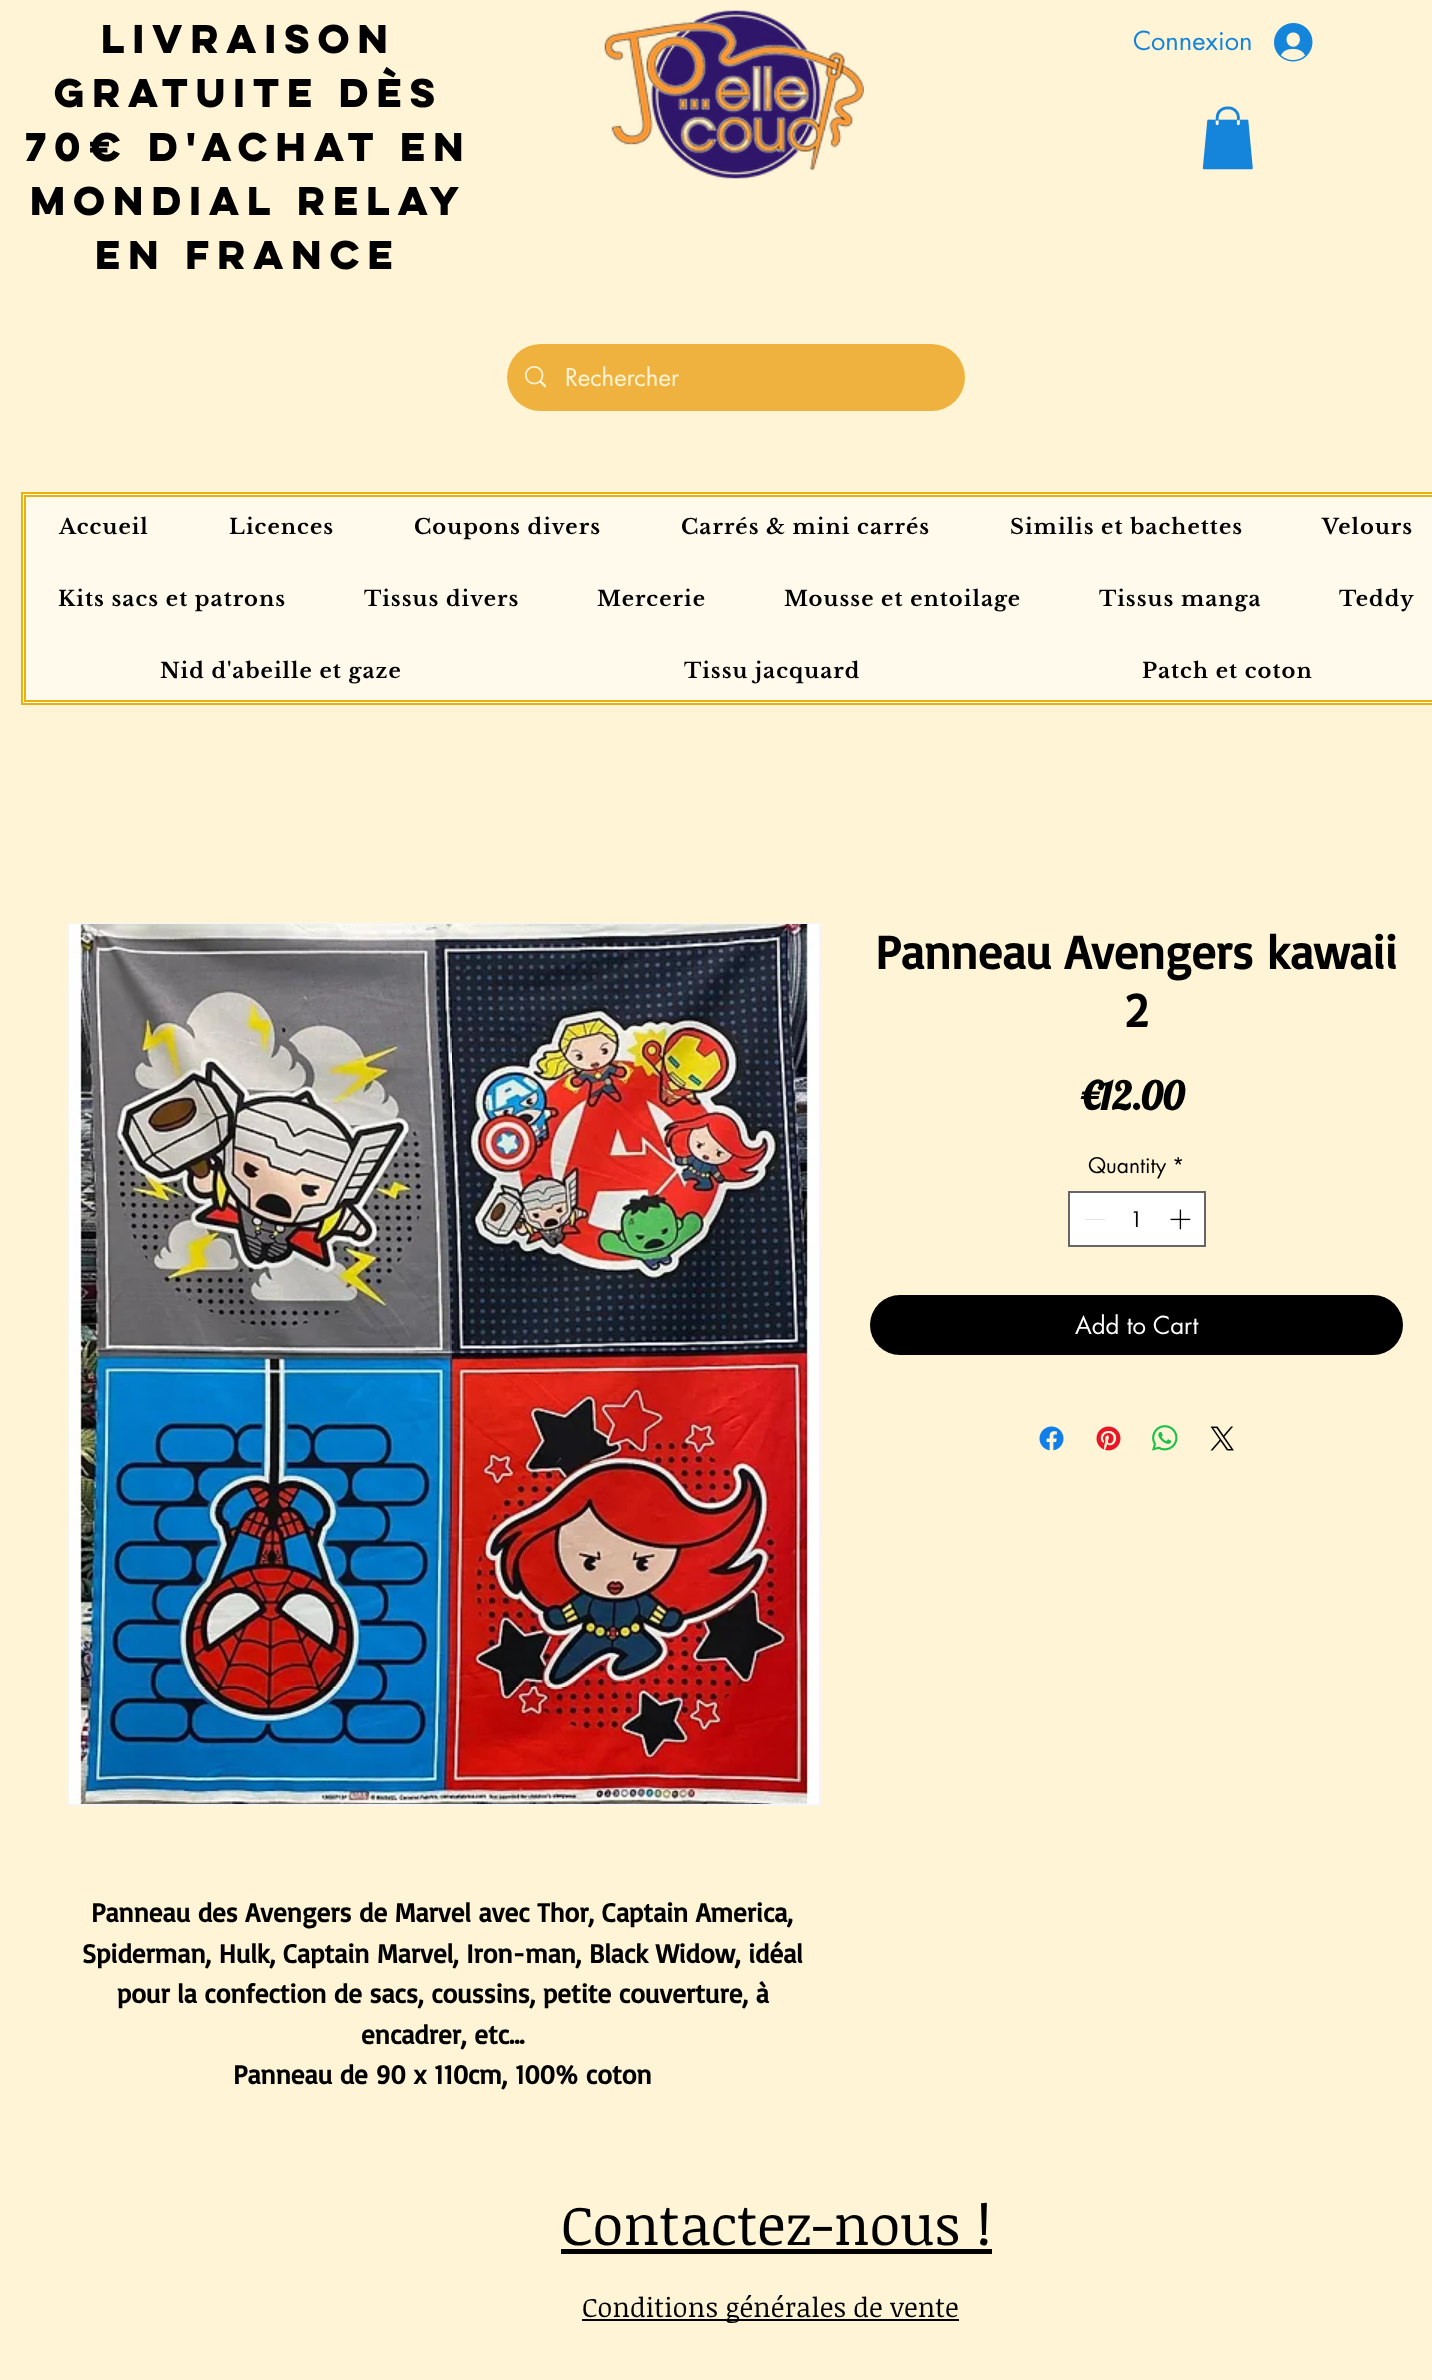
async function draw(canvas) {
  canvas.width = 1432
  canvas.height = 2380
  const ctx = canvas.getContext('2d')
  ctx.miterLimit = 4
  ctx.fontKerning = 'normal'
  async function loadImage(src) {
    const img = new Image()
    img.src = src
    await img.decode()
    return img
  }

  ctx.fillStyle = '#fff5d6'
  ctx.fillRect(0, 0, 1432, 2380)
  ctx.font = 'bold 36px "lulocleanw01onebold"'
  ctx.fillStyle = '#000'
  ctx.fillText('Livraison', 101, 53)
  ctx.fillText('gratuite dès', 54, 107)
  ctx.fillText('70€ d\'achat en', 25, 161)
  ctx.fillText('mondial relay', 30, 215)
  ctx.fillText('en France', 95, 269)
  ctx.drawImage(await loadImage('image0.png'), 604, 10, 260, 169)
  ctx.font = '25.5px futura'
  ctx.fillStyle = '#1585db'
  ctx.fillText('Connexion', 1133, 50)
  ctx.drawImage(await loadImage('image1.png'), 1274, 23, 39, 39)
  ctx.drawImage(await loadImage('image2.png'), 1202, 106, 51, 64)
  ctx.fillStyle = '#f0b23e'
  ctx.beginPath()
  ctx.roundRect(507, 344, 458, 67, 33.5)
  ctx.fill()
  ctx.drawImage(await loadImage('image3.png'), 525, 366, 21, 22)
  ctx.font = '24px futura'
  ctx.fillStyle = '#fff5d6'
  ctx.fillText('Rechercher', 565, 386)
  ctx.fillStyle = '#fffaeb'
  ctx.beginPath()
  ctx.rect(22, 493, 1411, 211)
  ctx.fill()
  ctx.strokeStyle = '#e5b216'
  ctx.lineWidth = 2
  ctx.stroke()
  ctx.strokeRect(25, 496, 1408, 205)
  ctx.letterSpacing = '1.05px'
  ctx.font = 'bold 21px Libre Baskerville'
  ctx.fillStyle = '#000'
  ctx.fillText('Accueil', 59, 534)
  ctx.fillText('Licences', 229, 534)
  ctx.fillText('Coupons divers', 414, 534)
  ctx.fillText('Carrés & mini carrés', 681, 534)
  ctx.fillText('Similis et bachettes', 1010, 534)
  ctx.fillText('Velours', 1322, 534)
  ctx.fillText('Kits sacs et patrons', 58, 606)
  ctx.fillText('Tissus divers', 364, 606)
  ctx.fillText('Mercerie', 597, 606)
  ctx.fillText('Mousse et entoilage', 784, 606)
  ctx.fillText('Tissus manga', 1099, 606)
  ctx.fillText('Teddy', 1339, 606)
  ctx.fillText('Nid d\'abeille et gaze', 160, 678)
  ctx.fillText('Tissu jacquard', 684, 678)
  ctx.fillText('Patch et coton', 1142, 678)
  ctx.letterSpacing = '0px'
  ctx.font = 'bold 48px Basic'
  ctx.fillText('Panneau Avengers kawaii', 875, 969)
  ctx.fillText('2', 1125, 1027)
  ctx.font = 'bold 39px Lobster'
  ctx.fillText('€12.00', 1080, 1110)
  ctx.font = '21px futura'
  ctx.fillText('Quantity', 1088, 1173)
  ctx.fillText('*', 1172, 1173)
  ctx.fillStyle = '#fff'
  ctx.beginPath()
  ctx.rect(1069, 1192, 136, 54)
  ctx.fill()
  ctx.strokeStyle = '#666'
  ctx.stroke()
  ctx.fillStyle = '#e3e3e3'
  ctx.fillRect(1085, 1219, 20, 1)
  ctx.fillStyle = '#000'
  ctx.fillText('1', 1130, 1227)
  ctx.drawImage(await loadImage('image4.png'), 1170, 1209, 21, 21)
  ctx.beginPath()
  ctx.roundRect(870, 1295, 533, 60, 30)
  ctx.fill()
  ctx.font = '24px futura'
  ctx.fillStyle = '#fff'
  ctx.fillText('Add to Cart', 1075, 1334)
  ctx.drawImage(await loadImage('image5.png'), 1039, 1426, 25, 25)
  ctx.drawImage(await loadImage('image6.png'), 1096, 1426, 25, 25)
  ctx.drawImage(await loadImage('image7.png'), 1152, 1425, 26, 26)
  ctx.drawImage(await loadImage('image8.png'), 1210, 1426, 24, 25)
  ctx.strokeStyle = '#f5f5f5'
  ctx.strokeRect(69, 924, 751, 881)
  ctx.drawImage(await loadImage('image9.png'), 69, 924, 750, 880)
  ctx.font = 'bold 27px Basic'
  ctx.fillStyle = '#000'
  ctx.fillText('Panneau des Avengers de Marvel avec Thor, Captain America,', 91, 1922)
  ctx.fillText('Spiderman, Hulk, Captain Marvel, Iron-man, Black Widow, idéal', 82, 1963)
  ctx.fillText('pour la confection de sacs, coussins, petite couverture, à', 117, 2003)
  ctx.fillText('encadrer, etc...', 361, 2044)
  ctx.fillText('Panneau de 90 x 110cm, 100% coton', 233, 2084)
  ctx.font = '55.5px Noticia Text'
  ctx.fillText('Contactez-nous !', 561, 2245)
  ctx.fillRect(561, 2249, 431, 5)
  ctx.fillRect(582, 2319, 377, 2)
  ctx.font = '27px Noticia Text'
  ctx.fillText('Conditions générales de vente', 582, 2317)
}

draw(document.querySelector('canvas'))
